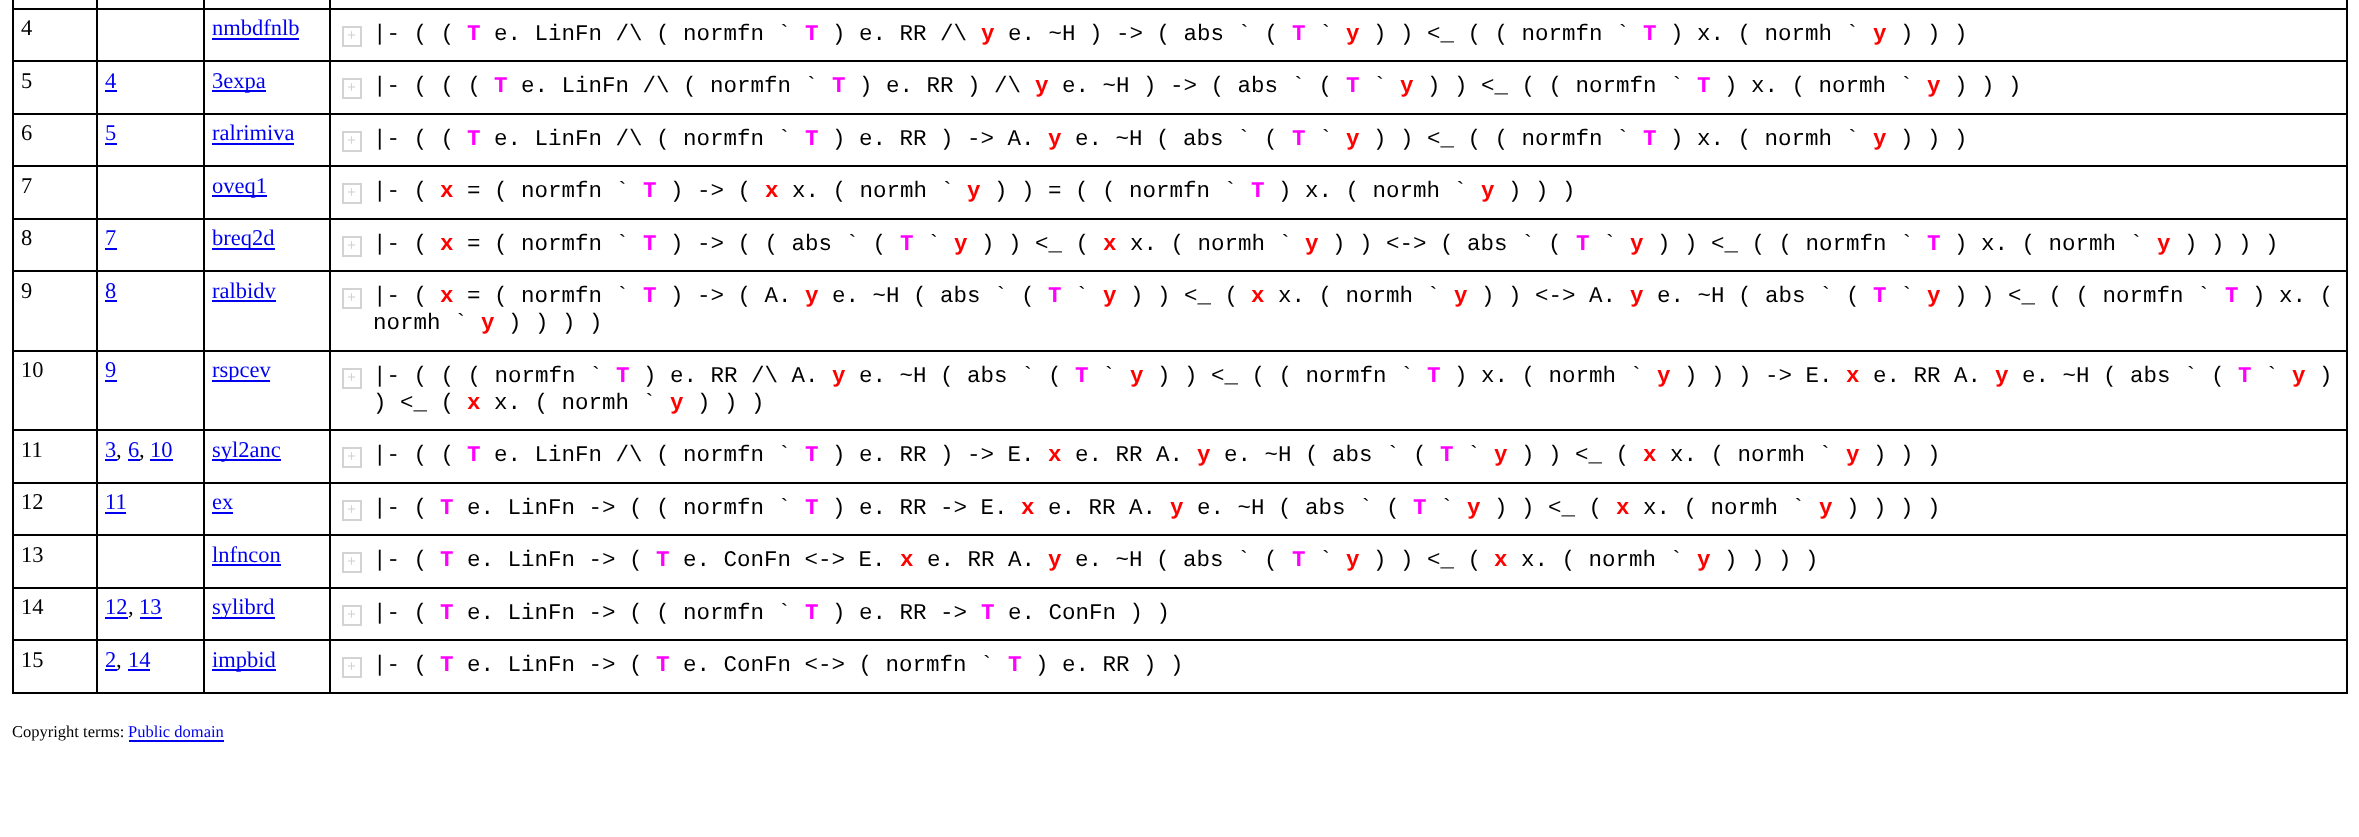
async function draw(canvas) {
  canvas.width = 2359
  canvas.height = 837
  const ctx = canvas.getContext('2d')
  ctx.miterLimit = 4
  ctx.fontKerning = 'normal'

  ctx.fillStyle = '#fff'
  ctx.fillRect(0, 0, 2359, 837)
  ctx.fillStyle = '#000'
  ctx.fillRect(329, 8, 2019, 2)
  ctx.fillRect(329, 60, 2019, 2)
  ctx.fillRect(329, 113, 2019, 2)
  ctx.fillRect(329, 165, 2019, 2)
  ctx.fillRect(329, 218, 2019, 2)
  ctx.fillRect(329, 270, 2019, 2)
  ctx.fillRect(329, 350, 2019, 2)
  ctx.fillRect(329, 429, 2019, 2)
  ctx.fillRect(329, 482, 2019, 2)
  ctx.fillRect(329, 534, 2019, 2)
  ctx.fillRect(329, 587, 2019, 2)
  ctx.fillRect(329, 639, 2019, 2)
  ctx.fillRect(2346, 639, 2, 54)
  ctx.fillRect(329, 692, 2019, 2)
  ctx.fillRect(329, 639, 2, 54)
  ctx.fillRect(203, 639, 127, 2)
  ctx.fillRect(329, 587, 2, 54)
  ctx.fillRect(203, 587, 127, 2)
  ctx.fillRect(329, 534, 2, 54)
  ctx.fillRect(203, 534, 127, 2)
  ctx.fillRect(329, 482, 2, 54)
  ctx.fillRect(203, 482, 127, 2)
  ctx.fillRect(329, 429, 2, 54)
  ctx.fillRect(203, 429, 127, 2)
  ctx.fillRect(329, 350, 2, 81)
  ctx.fillRect(203, 350, 127, 2)
  ctx.fillRect(329, 270, 2, 81)
  ctx.fillRect(203, 270, 127, 2)
  ctx.fillRect(329, 218, 2, 54)
  ctx.fillRect(203, 218, 127, 2)
  ctx.fillRect(329, 165, 2, 54)
  ctx.fillRect(203, 165, 127, 2)
  ctx.fillRect(329, 113, 2, 54)
  ctx.fillRect(203, 113, 127, 2)
  ctx.fillRect(329, 60, 2, 54)
  ctx.fillRect(203, 60, 127, 2)
  ctx.fillRect(329, 8, 2, 54)
  ctx.fillRect(203, 8, 127, 2)
  ctx.fillRect(203, 692, 127, 2)
  ctx.fillRect(203, 639, 2, 54)
  ctx.fillRect(96, 639, 108, 2)
  ctx.fillRect(203, 587, 2, 54)
  ctx.fillRect(96, 587, 108, 2)
  ctx.fillRect(203, 534, 2, 54)
  ctx.fillRect(96, 534, 108, 2)
  ctx.fillRect(203, 482, 2, 54)
  ctx.fillRect(96, 482, 108, 2)
  ctx.fillRect(203, 429, 2, 54)
  ctx.fillRect(96, 429, 108, 2)
  ctx.fillRect(203, 350, 2, 81)
  ctx.fillRect(96, 350, 108, 2)
  ctx.fillRect(203, 270, 2, 81)
  ctx.fillRect(96, 270, 108, 2)
  ctx.fillRect(203, 218, 2, 54)
  ctx.fillRect(96, 218, 108, 2)
  ctx.fillRect(203, 165, 2, 54)
  ctx.fillRect(96, 165, 108, 2)
  ctx.fillRect(203, 113, 2, 54)
  ctx.fillRect(96, 113, 108, 2)
  ctx.fillRect(203, 60, 2, 54)
  ctx.fillRect(96, 60, 108, 2)
  ctx.fillRect(203, 8, 2, 54)
  ctx.fillRect(96, 8, 108, 2)
  ctx.fillRect(96, 692, 108, 2)
  ctx.fillRect(96, 639, 2, 54)
  ctx.fillRect(12, 639, 86, 2)
  ctx.fillRect(96, 587, 2, 54)
  ctx.fillRect(12, 587, 86, 2)
  ctx.fillRect(96, 534, 2, 54)
  ctx.fillRect(12, 534, 86, 2)
  ctx.fillRect(96, 482, 2, 54)
  ctx.fillRect(12, 482, 86, 2)
  ctx.fillRect(96, 429, 2, 54)
  ctx.fillRect(12, 429, 86, 2)
  ctx.fillRect(96, 350, 2, 81)
  ctx.fillRect(12, 350, 86, 2)
  ctx.fillRect(96, 270, 2, 81)
  ctx.fillRect(12, 270, 86, 2)
  ctx.fillRect(96, 218, 2, 54)
  ctx.fillRect(12, 218, 86, 2)
  ctx.fillRect(96, 165, 2, 54)
  ctx.fillRect(12, 165, 86, 2)
  ctx.fillRect(96, 113, 2, 54)
  ctx.fillRect(12, 113, 86, 2)
  ctx.fillRect(96, 60, 2, 54)
  ctx.fillRect(12, 60, 86, 2)
  ctx.fillRect(96, 8, 2, 54)
  ctx.fillRect(12, 8, 86, 2)
  ctx.fillRect(96, 0, 2, 9)
  ctx.fillRect(203, 0, 2, 9)
  ctx.fillRect(329, 0, 2, 9)
  ctx.fillRect(12, 692, 86, 2)
  ctx.fillRect(12, 639, 2, 54)
  ctx.fillRect(12, 587, 2, 54)
  ctx.fillRect(12, 534, 2, 54)
  ctx.fillRect(12, 482, 2, 54)
  ctx.fillRect(12, 429, 2, 54)
  ctx.fillRect(12, 350, 2, 81)
  ctx.fillRect(12, 270, 2, 81)
  ctx.fillRect(12, 218, 2, 54)
  ctx.fillRect(12, 165, 2, 54)
  ctx.fillRect(12, 113, 2, 54)
  ctx.fillRect(12, 60, 2, 54)
  ctx.fillRect(12, 0, 2, 62)
  ctx.font = '22.5px Liberation Serif'
  ctx.fillText('4', 21, 35)
  ctx.fillStyle = '#00e'
  ctx.fillText('nmbdfnlb', 212, 35)
  ctx.fillRect(212, 38, 87, 2)
  ctx.fillStyle = '#000'
  ctx.fillRect(2346, 587, 2, 54)
  ctx.fillRect(2346, 534, 2, 54)
  ctx.fillRect(2346, 482, 2, 54)
  ctx.fillRect(2346, 429, 2, 54)
  ctx.fillRect(2346, 350, 2, 81)
  ctx.fillRect(2346, 270, 2, 81)
  ctx.fillRect(2346, 218, 2, 54)
  ctx.fillRect(2346, 165, 2, 54)
  ctx.fillRect(2346, 113, 2, 54)
  ctx.fillRect(2346, 60, 2, 54)
  ctx.fillRect(2346, 0, 2, 62)
  ctx.strokeStyle = '#d3d3d3'
  ctx.lineWidth = 2
  ctx.strokeRect(343, 27, 18, 19)
  ctx.font = '15px Liberation Mono'
  ctx.fillStyle = '#d3d3d3'
  ctx.fillText('+', 347, 40)
  ctx.font = '22.5px Liberation Mono'
  ctx.fillStyle = '#000'
  ctx.fillText('|- ( (', 373, 40)
  ctx.font = 'bold 22.5px Liberation Mono'
  ctx.fillStyle = '#f0f'
  ctx.fillText('T', 467, 40)
  ctx.font = '22.5px Liberation Mono'
  ctx.fillStyle = '#000'
  ctx.fillText('e. LinFn /\\ ( normfn `', 494, 40)
  ctx.font = 'bold 22.5px Liberation Mono'
  ctx.fillStyle = '#f0f'
  ctx.fillText('T', 805, 40)
  ctx.font = '22.5px Liberation Mono'
  ctx.fillStyle = '#000'
  ctx.fillText(') e. RR /\\', 832, 40)
  ctx.font = 'bold 22.5px Liberation Mono'
  ctx.fillStyle = '#f00'
  ctx.fillText('y', 981, 40)
  ctx.font = '22.5px Liberation Mono'
  ctx.fillStyle = '#000'
  ctx.fillText('e. ~H ) -> ( abs ` (', 1008, 40)
  ctx.font = 'bold 22.5px Liberation Mono'
  ctx.fillStyle = '#f0f'
  ctx.fillText('T', 1292, 40)
  ctx.font = '22.5px Liberation Mono'
  ctx.fillStyle = '#000'
  ctx.fillText('`', 1319, 40)
  ctx.font = 'bold 22.5px Liberation Mono'
  ctx.fillStyle = '#f00'
  ctx.fillText('y', 1346, 40)
  ctx.font = '22.5px Liberation Mono'
  ctx.fillStyle = '#000'
  ctx.fillText(') ) <_ ( ( normfn `', 1373, 40)
  ctx.font = 'bold 22.5px Liberation Mono'
  ctx.fillStyle = '#f0f'
  ctx.fillText('T', 1643, 40)
  ctx.font = '22.5px Liberation Mono'
  ctx.fillStyle = '#000'
  ctx.fillText(') x. ( normh `', 1670, 40)
  ctx.font = 'bold 22.5px Liberation Mono'
  ctx.fillStyle = '#f00'
  ctx.fillText('y', 1873, 40)
  ctx.font = '22.5px Liberation Mono'
  ctx.fillStyle = '#000'
  ctx.fillText(') ) )', 1900, 40)
  ctx.font = '22.5px Liberation Serif'
  ctx.fillText('5', 21, 88)
  ctx.fillStyle = '#00e'
  ctx.fillText('4', 105, 88)
  ctx.fillRect(105, 90, 12, 2)
  ctx.fillRect(212, 90, 54, 2)
  ctx.fillText('3expa', 212, 88)
  ctx.strokeRect(343, 79, 18, 19)
  ctx.font = '15px Liberation Mono'
  ctx.fillStyle = '#d3d3d3'
  ctx.fillText('+', 347, 92)
  ctx.font = '22.5px Liberation Mono'
  ctx.fillStyle = '#000'
  ctx.fillText('|- ( ( (', 373, 92)
  ctx.font = 'bold 22.5px Liberation Mono'
  ctx.fillStyle = '#f0f'
  ctx.fillText('T', 494, 92)
  ctx.font = '22.5px Liberation Mono'
  ctx.fillStyle = '#000'
  ctx.fillText('e. LinFn /\\ ( normfn `', 521, 92)
  ctx.font = 'bold 22.5px Liberation Mono'
  ctx.fillStyle = '#f0f'
  ctx.fillText('T', 832, 92)
  ctx.font = '22.5px Liberation Mono'
  ctx.fillStyle = '#000'
  ctx.fillText(') e. RR ) /\\', 859, 92)
  ctx.font = 'bold 22.5px Liberation Mono'
  ctx.fillStyle = '#f00'
  ctx.fillText('y', 1035, 92)
  ctx.font = '22.5px Liberation Mono'
  ctx.fillStyle = '#000'
  ctx.fillText('e. ~H ) -> ( abs ` (', 1062, 92)
  ctx.font = 'bold 22.5px Liberation Mono'
  ctx.fillStyle = '#f0f'
  ctx.fillText('T', 1346, 92)
  ctx.font = '22.5px Liberation Mono'
  ctx.fillStyle = '#000'
  ctx.fillText('`', 1373, 92)
  ctx.font = 'bold 22.5px Liberation Mono'
  ctx.fillStyle = '#f00'
  ctx.fillText('y', 1400, 92)
  ctx.font = '22.5px Liberation Mono'
  ctx.fillStyle = '#000'
  ctx.fillText(') ) <_ ( ( normfn `', 1427, 92)
  ctx.font = 'bold 22.5px Liberation Mono'
  ctx.fillStyle = '#f0f'
  ctx.fillText('T', 1697, 92)
  ctx.font = '22.5px Liberation Mono'
  ctx.fillStyle = '#000'
  ctx.fillText(') x. ( normh `', 1724, 92)
  ctx.font = 'bold 22.5px Liberation Mono'
  ctx.fillStyle = '#f00'
  ctx.fillText('y', 1927, 92)
  ctx.font = '22.5px Liberation Mono'
  ctx.fillStyle = '#000'
  ctx.fillText(') ) )', 1954, 92)
  ctx.font = '22.5px Liberation Serif'
  ctx.fillText('6', 21, 140)
  ctx.fillStyle = '#00e'
  ctx.fillText('5', 105, 140)
  ctx.fillRect(105, 143, 12, 2)
  ctx.fillText('ralrimiva', 212, 140)
  ctx.fillRect(212, 143, 82, 2)
  ctx.strokeRect(343, 132, 18, 19)
  ctx.font = '15px Liberation Mono'
  ctx.fillStyle = '#d3d3d3'
  ctx.fillText('+', 347, 145)
  ctx.font = '22.5px Liberation Mono'
  ctx.fillStyle = '#000'
  ctx.fillText('|- ( (', 373, 145)
  ctx.font = 'bold 22.5px Liberation Mono'
  ctx.fillStyle = '#f0f'
  ctx.fillText('T', 467, 145)
  ctx.font = '22.5px Liberation Mono'
  ctx.fillStyle = '#000'
  ctx.fillText('e. LinFn /\\ ( normfn `', 494, 145)
  ctx.font = 'bold 22.5px Liberation Mono'
  ctx.fillStyle = '#f0f'
  ctx.fillText('T', 805, 145)
  ctx.font = '22.5px Liberation Mono'
  ctx.fillStyle = '#000'
  ctx.fillText(') e. RR ) -> A.', 832, 145)
  ctx.font = 'bold 22.5px Liberation Mono'
  ctx.fillStyle = '#f00'
  ctx.fillText('y', 1048, 145)
  ctx.font = '22.5px Liberation Mono'
  ctx.fillStyle = '#000'
  ctx.fillText('e. ~H ( abs ` (', 1075, 145)
  ctx.font = 'bold 22.5px Liberation Mono'
  ctx.fillStyle = '#f0f'
  ctx.fillText('T', 1292, 145)
  ctx.font = '22.5px Liberation Mono'
  ctx.fillStyle = '#000'
  ctx.fillText('`', 1319, 145)
  ctx.font = 'bold 22.5px Liberation Mono'
  ctx.fillStyle = '#f00'
  ctx.fillText('y', 1346, 145)
  ctx.font = '22.5px Liberation Mono'
  ctx.fillStyle = '#000'
  ctx.fillText(') ) <_ ( ( normfn `', 1373, 145)
  ctx.font = 'bold 22.5px Liberation Mono'
  ctx.fillStyle = '#f0f'
  ctx.fillText('T', 1643, 145)
  ctx.font = '22.5px Liberation Mono'
  ctx.fillStyle = '#000'
  ctx.fillText(') x. ( normh `', 1670, 145)
  ctx.font = 'bold 22.5px Liberation Mono'
  ctx.fillStyle = '#f00'
  ctx.fillText('y', 1873, 145)
  ctx.font = '22.5px Liberation Mono'
  ctx.fillStyle = '#000'
  ctx.fillText(') ) )', 1900, 145)
  ctx.font = '22.5px Liberation Serif'
  ctx.fillText('7', 21, 193)
  ctx.fillStyle = '#00e'
  ctx.fillRect(212, 195, 55, 2)
  ctx.fillText('oveq1', 212, 193)
  ctx.strokeRect(343, 184, 18, 19)
  ctx.font = '15px Liberation Mono'
  ctx.fillStyle = '#d3d3d3'
  ctx.fillText('+', 347, 197)
  ctx.font = '22.5px Liberation Mono'
  ctx.fillStyle = '#000'
  ctx.fillText('|- (', 373, 197)
  ctx.font = 'bold 22.5px Liberation Mono'
  ctx.fillStyle = '#f00'
  ctx.fillText('x', 440, 197)
  ctx.font = '22.5px Liberation Mono'
  ctx.fillStyle = '#000'
  ctx.fillText('= ( normfn `', 467, 197)
  ctx.font = 'bold 22.5px Liberation Mono'
  ctx.fillStyle = '#f0f'
  ctx.fillText('T', 643, 197)
  ctx.font = '22.5px Liberation Mono'
  ctx.fillStyle = '#000'
  ctx.fillText(') -> (', 670, 197)
  ctx.font = 'bold 22.5px Liberation Mono'
  ctx.fillStyle = '#f00'
  ctx.fillText('x', 765, 197)
  ctx.font = '22.5px Liberation Mono'
  ctx.fillStyle = '#000'
  ctx.fillText('x. ( normh `', 792, 197)
  ctx.font = 'bold 22.5px Liberation Mono'
  ctx.fillStyle = '#f00'
  ctx.fillText('y', 967, 197)
  ctx.font = '22.5px Liberation Mono'
  ctx.fillStyle = '#000'
  ctx.fillText(') ) = ( ( normfn `', 994, 197)
  ctx.font = 'bold 22.5px Liberation Mono'
  ctx.fillStyle = '#f0f'
  ctx.fillText('T', 1251, 197)
  ctx.font = '22.5px Liberation Mono'
  ctx.fillStyle = '#000'
  ctx.fillText(') x. ( normh `', 1278, 197)
  ctx.font = 'bold 22.5px Liberation Mono'
  ctx.fillStyle = '#f00'
  ctx.fillText('y', 1481, 197)
  ctx.font = '22.5px Liberation Mono'
  ctx.fillStyle = '#000'
  ctx.fillText(') ) )', 1508, 197)
  ctx.font = '22.5px Liberation Serif'
  ctx.fillText('8', 21, 245)
  ctx.fillStyle = '#00e'
  ctx.fillText('7', 105, 245)
  ctx.fillRect(105, 248, 12, 2)
  ctx.fillRect(212, 248, 63, 2)
  ctx.fillText('breq2d', 212, 245)
  ctx.strokeRect(343, 237, 18, 19)
  ctx.font = '15px Liberation Mono'
  ctx.fillStyle = '#d3d3d3'
  ctx.fillText('+', 347, 250)
  ctx.font = '22.5px Liberation Mono'
  ctx.fillStyle = '#000'
  ctx.fillText('|- (', 373, 250)
  ctx.font = 'bold 22.5px Liberation Mono'
  ctx.fillStyle = '#f00'
  ctx.fillText('x', 440, 250)
  ctx.font = '22.5px Liberation Mono'
  ctx.fillStyle = '#000'
  ctx.fillText('= ( normfn `', 467, 250)
  ctx.font = 'bold 22.5px Liberation Mono'
  ctx.fillStyle = '#f0f'
  ctx.fillText('T', 643, 250)
  ctx.font = '22.5px Liberation Mono'
  ctx.fillStyle = '#000'
  ctx.fillText(') -> ( ( abs ` (', 670, 250)
  ctx.font = 'bold 22.5px Liberation Mono'
  ctx.fillStyle = '#f0f'
  ctx.fillText('T', 900, 250)
  ctx.font = '22.5px Liberation Mono'
  ctx.fillStyle = '#000'
  ctx.fillText('`', 927, 250)
  ctx.font = 'bold 22.5px Liberation Mono'
  ctx.fillStyle = '#f00'
  ctx.fillText('y', 954, 250)
  ctx.font = '22.5px Liberation Mono'
  ctx.fillStyle = '#000'
  ctx.fillText(') ) <_ (', 981, 250)
  ctx.font = 'bold 22.5px Liberation Mono'
  ctx.fillStyle = '#f00'
  ctx.fillText('x', 1103, 250)
  ctx.font = '22.5px Liberation Mono'
  ctx.fillStyle = '#000'
  ctx.fillText('x. ( normh `', 1130, 250)
  ctx.font = 'bold 22.5px Liberation Mono'
  ctx.fillStyle = '#f00'
  ctx.fillText('y', 1305, 250)
  ctx.font = '22.5px Liberation Mono'
  ctx.fillStyle = '#000'
  ctx.fillText(') ) <-> ( abs ` (', 1332, 250)
  ctx.font = 'bold 22.5px Liberation Mono'
  ctx.fillStyle = '#f0f'
  ctx.fillText('T', 1576, 250)
  ctx.font = '22.5px Liberation Mono'
  ctx.fillStyle = '#000'
  ctx.fillText('`', 1603, 250)
  ctx.font = 'bold 22.5px Liberation Mono'
  ctx.fillStyle = '#f00'
  ctx.fillText('y', 1630, 250)
  ctx.font = '22.5px Liberation Mono'
  ctx.fillStyle = '#000'
  ctx.fillText(') ) <_ ( ( normfn `', 1657, 250)
  ctx.font = 'bold 22.5px Liberation Mono'
  ctx.fillStyle = '#f0f'
  ctx.fillText('T', 1927, 250)
  ctx.font = '22.5px Liberation Mono'
  ctx.fillStyle = '#000'
  ctx.fillText(') x. ( normh `', 1954, 250)
  ctx.font = 'bold 22.5px Liberation Mono'
  ctx.fillStyle = '#f00'
  ctx.fillText('y', 2157, 250)
  ctx.font = '22.5px Liberation Mono'
  ctx.fillStyle = '#000'
  ctx.fillText(') ) ) )', 2184, 250)
  ctx.font = '22.5px Liberation Serif'
  ctx.fillText('9', 21, 298)
  ctx.fillStyle = '#00e'
  ctx.fillText('8', 105, 298)
  ctx.fillRect(105, 300, 12, 2)
  ctx.fillText('ralbidv', 212, 298)
  ctx.fillRect(212, 300, 64, 2)
  ctx.strokeRect(343, 289, 18, 19)
  ctx.font = '15px Liberation Mono'
  ctx.fillStyle = '#d3d3d3'
  ctx.fillText('+', 347, 302)
  ctx.font = '22.5px Liberation Mono'
  ctx.fillStyle = '#000'
  ctx.fillText('|- (', 373, 302)
  ctx.font = 'bold 22.5px Liberation Mono'
  ctx.fillStyle = '#f00'
  ctx.fillText('x', 440, 302)
  ctx.font = '22.5px Liberation Mono'
  ctx.fillStyle = '#000'
  ctx.fillText('= ( normfn `', 467, 302)
  ctx.font = 'bold 22.5px Liberation Mono'
  ctx.fillStyle = '#f0f'
  ctx.fillText('T', 643, 302)
  ctx.font = '22.5px Liberation Mono'
  ctx.fillStyle = '#000'
  ctx.fillText(') -> ( A.', 670, 302)
  ctx.font = 'bold 22.5px Liberation Mono'
  ctx.fillStyle = '#f00'
  ctx.fillText('y', 805, 302)
  ctx.font = '22.5px Liberation Mono'
  ctx.fillStyle = '#000'
  ctx.fillText('e. ~H ( abs ` (', 832, 302)
  ctx.font = 'bold 22.5px Liberation Mono'
  ctx.fillStyle = '#f0f'
  ctx.fillText('T', 1048, 302)
  ctx.font = '22.5px Liberation Mono'
  ctx.fillStyle = '#000'
  ctx.fillText('`', 1075, 302)
  ctx.font = 'bold 22.5px Liberation Mono'
  ctx.fillStyle = '#f00'
  ctx.fillText('y', 1103, 302)
  ctx.font = '22.5px Liberation Mono'
  ctx.fillStyle = '#000'
  ctx.fillText(') ) <_ (', 1130, 302)
  ctx.font = 'bold 22.5px Liberation Mono'
  ctx.fillStyle = '#f00'
  ctx.fillText('x', 1251, 302)
  ctx.font = '22.5px Liberation Mono'
  ctx.fillStyle = '#000'
  ctx.fillText('x. ( normh `', 1278, 302)
  ctx.font = 'bold 22.5px Liberation Mono'
  ctx.fillStyle = '#f00'
  ctx.fillText('y', 1454, 302)
  ctx.font = '22.5px Liberation Mono'
  ctx.fillStyle = '#000'
  ctx.fillText(') ) <-> A.', 1481, 302)
  ctx.font = 'bold 22.5px Liberation Mono'
  ctx.fillStyle = '#f00'
  ctx.fillText('y', 1630, 302)
  ctx.font = '22.5px Liberation Mono'
  ctx.fillStyle = '#000'
  ctx.fillText('e. ~H ( abs ` (', 1657, 302)
  ctx.font = 'bold 22.5px Liberation Mono'
  ctx.fillStyle = '#f0f'
  ctx.fillText('T', 1873, 302)
  ctx.font = '22.5px Liberation Mono'
  ctx.fillStyle = '#000'
  ctx.fillText('`', 1900, 302)
  ctx.font = 'bold 22.5px Liberation Mono'
  ctx.fillStyle = '#f00'
  ctx.fillText('y', 1927, 302)
  ctx.font = '22.5px Liberation Mono'
  ctx.fillStyle = '#000'
  ctx.fillText(') ) <_ ( ( normfn `', 1954, 302)
  ctx.font = 'bold 22.5px Liberation Mono'
  ctx.fillStyle = '#f0f'
  ctx.fillText('T', 2225, 302)
  ctx.font = '22.5px Liberation Mono'
  ctx.fillStyle = '#000'
  ctx.fillText(') x. (', 2252, 302)
  ctx.fillText('normh `', 373, 329)
  ctx.font = 'bold 22.5px Liberation Mono'
  ctx.fillStyle = '#f00'
  ctx.fillText('y', 481, 329)
  ctx.font = '22.5px Liberation Mono'
  ctx.fillStyle = '#000'
  ctx.fillText(') ) ) )', 508, 329)
  ctx.font = '22.5px Liberation Serif'
  ctx.fillText('10', 21, 377)
  ctx.fillStyle = '#00e'
  ctx.fillText('9', 105, 377)
  ctx.fillRect(105, 380, 12, 2)
  ctx.fillRect(212, 380, 58, 2)
  ctx.fillText('rspcev', 212, 377)
  ctx.strokeRect(343, 369, 18, 19)
  ctx.font = '15px Liberation Mono'
  ctx.fillStyle = '#d3d3d3'
  ctx.fillText('+', 347, 382)
  ctx.font = '22.5px Liberation Mono'
  ctx.fillStyle = '#000'
  ctx.fillText('|- ( ( ( normfn `', 373, 382)
  ctx.font = 'bold 22.5px Liberation Mono'
  ctx.fillStyle = '#f0f'
  ctx.fillText('T', 616, 382)
  ctx.font = '22.5px Liberation Mono'
  ctx.fillStyle = '#000'
  ctx.fillText(') e. RR /\\ A.', 643, 382)
  ctx.font = 'bold 22.5px Liberation Mono'
  ctx.fillStyle = '#f00'
  ctx.fillText('y', 832, 382)
  ctx.font = '22.5px Liberation Mono'
  ctx.fillStyle = '#000'
  ctx.fillText('e. ~H ( abs ` (', 859, 382)
  ctx.font = 'bold 22.5px Liberation Mono'
  ctx.fillStyle = '#f0f'
  ctx.fillText('T', 1075, 382)
  ctx.font = '22.5px Liberation Mono'
  ctx.fillStyle = '#000'
  ctx.fillText('`', 1102, 382)
  ctx.font = 'bold 22.5px Liberation Mono'
  ctx.fillStyle = '#f00'
  ctx.fillText('y', 1130, 382)
  ctx.font = '22.5px Liberation Mono'
  ctx.fillStyle = '#000'
  ctx.fillText(') ) <_ ( ( normfn `', 1157, 382)
  ctx.font = 'bold 22.5px Liberation Mono'
  ctx.fillStyle = '#f0f'
  ctx.fillText('T', 1427, 382)
  ctx.font = '22.5px Liberation Mono'
  ctx.fillStyle = '#000'
  ctx.fillText(') x. ( normh `', 1454, 382)
  ctx.font = 'bold 22.5px Liberation Mono'
  ctx.fillStyle = '#f00'
  ctx.fillText('y', 1657, 382)
  ctx.font = '22.5px Liberation Mono'
  ctx.fillStyle = '#000'
  ctx.fillText(') ) ) -> E.', 1684, 382)
  ctx.font = 'bold 22.5px Liberation Mono'
  ctx.fillStyle = '#f00'
  ctx.fillText('x', 1846, 382)
  ctx.font = '22.5px Liberation Mono'
  ctx.fillStyle = '#000'
  ctx.fillText('e. RR A.', 1873, 382)
  ctx.font = 'bold 22.5px Liberation Mono'
  ctx.fillStyle = '#f00'
  ctx.fillText('y', 1995, 382)
  ctx.font = '22.5px Liberation Mono'
  ctx.fillStyle = '#000'
  ctx.fillText('e. ~H ( abs ` (', 2022, 382)
  ctx.font = 'bold 22.5px Liberation Mono'
  ctx.fillStyle = '#f0f'
  ctx.fillText('T', 2238, 382)
  ctx.font = '22.5px Liberation Mono'
  ctx.fillStyle = '#000'
  ctx.fillText('`', 2265, 382)
  ctx.font = 'bold 22.5px Liberation Mono'
  ctx.fillStyle = '#f00'
  ctx.fillText('y', 2292, 382)
  ctx.font = '22.5px Liberation Mono'
  ctx.fillStyle = '#000'
  ctx.fillText(')', 2319, 382)
  ctx.fillText(') <_ (', 373, 409)
  ctx.font = 'bold 22.5px Liberation Mono'
  ctx.fillStyle = '#f00'
  ctx.fillText('x', 467, 409)
  ctx.font = '22.5px Liberation Mono'
  ctx.fillStyle = '#000'
  ctx.fillText('x. ( normh `', 494, 409)
  ctx.font = 'bold 22.5px Liberation Mono'
  ctx.fillStyle = '#f00'
  ctx.fillText('y', 670, 409)
  ctx.font = '22.5px Liberation Mono'
  ctx.fillStyle = '#000'
  ctx.fillText(') ) )', 697, 409)
  ctx.font = '22.5px Liberation Serif'
  ctx.fillText('11', 21, 457)
  ctx.fillStyle = '#00e'
  ctx.fillText('3', 105, 457)
  ctx.fillRect(105, 459, 12, 2)
  ctx.fillStyle = '#000'
  ctx.fillText(',', 116, 457)
  ctx.fillStyle = '#00e'
  ctx.fillText('6', 128, 457)
  ctx.fillRect(128, 459, 12, 2)
  ctx.fillStyle = '#000'
  ctx.fillText(',', 139, 457)
  ctx.fillStyle = '#00e'
  ctx.fillText('10', 150, 457)
  ctx.fillRect(150, 459, 23, 2)
  ctx.fillRect(212, 459, 69, 2)
  ctx.fillText('syl2anc', 212, 457)
  ctx.strokeRect(343, 448, 18, 19)
  ctx.font = '15px Liberation Mono'
  ctx.fillStyle = '#d3d3d3'
  ctx.fillText('+', 347, 461)
  ctx.font = '22.5px Liberation Mono'
  ctx.fillStyle = '#000'
  ctx.fillText('|- ( (', 373, 461)
  ctx.font = 'bold 22.5px Liberation Mono'
  ctx.fillStyle = '#f0f'
  ctx.fillText('T', 467, 461)
  ctx.font = '22.5px Liberation Mono'
  ctx.fillStyle = '#000'
  ctx.fillText('e. LinFn /\\ ( normfn `', 494, 461)
  ctx.font = 'bold 22.5px Liberation Mono'
  ctx.fillStyle = '#f0f'
  ctx.fillText('T', 805, 461)
  ctx.font = '22.5px Liberation Mono'
  ctx.fillStyle = '#000'
  ctx.fillText(') e. RR ) -> E.', 832, 461)
  ctx.font = 'bold 22.5px Liberation Mono'
  ctx.fillStyle = '#f00'
  ctx.fillText('x', 1048, 461)
  ctx.font = '22.5px Liberation Mono'
  ctx.fillStyle = '#000'
  ctx.fillText('e. RR A.', 1075, 461)
  ctx.font = 'bold 22.5px Liberation Mono'
  ctx.fillStyle = '#f00'
  ctx.fillText('y', 1197, 461)
  ctx.font = '22.5px Liberation Mono'
  ctx.fillStyle = '#000'
  ctx.fillText('e. ~H ( abs ` (', 1224, 461)
  ctx.font = 'bold 22.5px Liberation Mono'
  ctx.fillStyle = '#f0f'
  ctx.fillText('T', 1440, 461)
  ctx.font = '22.5px Liberation Mono'
  ctx.fillStyle = '#000'
  ctx.fillText('`', 1467, 461)
  ctx.font = 'bold 22.5px Liberation Mono'
  ctx.fillStyle = '#f00'
  ctx.fillText('y', 1494, 461)
  ctx.font = '22.5px Liberation Mono'
  ctx.fillStyle = '#000'
  ctx.fillText(') ) <_ (', 1521, 461)
  ctx.font = 'bold 22.5px Liberation Mono'
  ctx.fillStyle = '#f00'
  ctx.fillText('x', 1643, 461)
  ctx.font = '22.5px Liberation Mono'
  ctx.fillStyle = '#000'
  ctx.fillText('x. ( normh `', 1670, 461)
  ctx.font = 'bold 22.5px Liberation Mono'
  ctx.fillStyle = '#f00'
  ctx.fillText('y', 1846, 461)
  ctx.font = '22.5px Liberation Mono'
  ctx.fillStyle = '#000'
  ctx.fillText(') ) )', 1873, 461)
  ctx.font = '22.5px Liberation Serif'
  ctx.fillText('12', 21, 509)
  ctx.fillStyle = '#00e'
  ctx.fillText('11', 105, 509)
  ctx.fillRect(105, 512, 21, 2)
  ctx.fillText('ex', 212, 509)
  ctx.fillRect(212, 512, 21, 2)
  ctx.strokeRect(343, 501, 18, 19)
  ctx.font = '15px Liberation Mono'
  ctx.fillStyle = '#d3d3d3'
  ctx.fillText('+', 347, 514)
  ctx.font = '22.5px Liberation Mono'
  ctx.fillStyle = '#000'
  ctx.fillText('|- (', 373, 514)
  ctx.font = 'bold 22.5px Liberation Mono'
  ctx.fillStyle = '#f0f'
  ctx.fillText('T', 440, 514)
  ctx.font = '22.5px Liberation Mono'
  ctx.fillStyle = '#000'
  ctx.fillText('e. LinFn -> ( ( normfn `', 467, 514)
  ctx.font = 'bold 22.5px Liberation Mono'
  ctx.fillStyle = '#f0f'
  ctx.fillText('T', 805, 514)
  ctx.font = '22.5px Liberation Mono'
  ctx.fillStyle = '#000'
  ctx.fillText(') e. RR -> E.', 832, 514)
  ctx.font = 'bold 22.5px Liberation Mono'
  ctx.fillStyle = '#f00'
  ctx.fillText('x', 1021, 514)
  ctx.font = '22.5px Liberation Mono'
  ctx.fillStyle = '#000'
  ctx.fillText('e. RR A.', 1048, 514)
  ctx.font = 'bold 22.5px Liberation Mono'
  ctx.fillStyle = '#f00'
  ctx.fillText('y', 1170, 514)
  ctx.font = '22.5px Liberation Mono'
  ctx.fillStyle = '#000'
  ctx.fillText('e. ~H ( abs ` (', 1197, 514)
  ctx.font = 'bold 22.5px Liberation Mono'
  ctx.fillStyle = '#f0f'
  ctx.fillText('T', 1413, 514)
  ctx.font = '22.5px Liberation Mono'
  ctx.fillStyle = '#000'
  ctx.fillText('`', 1440, 514)
  ctx.font = 'bold 22.5px Liberation Mono'
  ctx.fillStyle = '#f00'
  ctx.fillText('y', 1467, 514)
  ctx.font = '22.5px Liberation Mono'
  ctx.fillStyle = '#000'
  ctx.fillText(') ) <_ (', 1494, 514)
  ctx.font = 'bold 22.5px Liberation Mono'
  ctx.fillStyle = '#f00'
  ctx.fillText('x', 1616, 514)
  ctx.font = '22.5px Liberation Mono'
  ctx.fillStyle = '#000'
  ctx.fillText('x. ( normh `', 1643, 514)
  ctx.font = 'bold 22.5px Liberation Mono'
  ctx.fillStyle = '#f00'
  ctx.fillText('y', 1819, 514)
  ctx.font = '22.5px Liberation Mono'
  ctx.fillStyle = '#000'
  ctx.fillText(') ) ) )', 1846, 514)
  ctx.font = '22.5px Liberation Serif'
  ctx.fillText('13', 21, 562)
  ctx.fillStyle = '#00e'
  ctx.fillText('lnfncon', 212, 562)
  ctx.fillRect(212, 564, 69, 2)
  ctx.strokeRect(343, 553, 18, 19)
  ctx.font = '15px Liberation Mono'
  ctx.fillStyle = '#d3d3d3'
  ctx.fillText('+', 347, 566)
  ctx.font = '22.5px Liberation Mono'
  ctx.fillStyle = '#000'
  ctx.fillText('|- (', 373, 566)
  ctx.font = 'bold 22.5px Liberation Mono'
  ctx.fillStyle = '#f0f'
  ctx.fillText('T', 440, 566)
  ctx.font = '22.5px Liberation Mono'
  ctx.fillStyle = '#000'
  ctx.fillText('e. LinFn -> (', 467, 566)
  ctx.font = 'bold 22.5px Liberation Mono'
  ctx.fillStyle = '#f0f'
  ctx.fillText('T', 656, 566)
  ctx.font = '22.5px Liberation Mono'
  ctx.fillStyle = '#000'
  ctx.fillText('e. ConFn <-> E.', 683, 566)
  ctx.font = 'bold 22.5px Liberation Mono'
  ctx.fillStyle = '#f00'
  ctx.fillText('x', 900, 566)
  ctx.font = '22.5px Liberation Mono'
  ctx.fillStyle = '#000'
  ctx.fillText('e. RR A.', 927, 566)
  ctx.font = 'bold 22.5px Liberation Mono'
  ctx.fillStyle = '#f00'
  ctx.fillText('y', 1048, 566)
  ctx.font = '22.5px Liberation Mono'
  ctx.fillStyle = '#000'
  ctx.fillText('e. ~H ( abs ` (', 1075, 566)
  ctx.font = 'bold 22.5px Liberation Mono'
  ctx.fillStyle = '#f0f'
  ctx.fillText('T', 1292, 566)
  ctx.font = '22.5px Liberation Mono'
  ctx.fillStyle = '#000'
  ctx.fillText('`', 1319, 566)
  ctx.font = 'bold 22.5px Liberation Mono'
  ctx.fillStyle = '#f00'
  ctx.fillText('y', 1346, 566)
  ctx.font = '22.5px Liberation Mono'
  ctx.fillStyle = '#000'
  ctx.fillText(') ) <_ (', 1373, 566)
  ctx.font = 'bold 22.5px Liberation Mono'
  ctx.fillStyle = '#f00'
  ctx.fillText('x', 1494, 566)
  ctx.font = '22.5px Liberation Mono'
  ctx.fillStyle = '#000'
  ctx.fillText('x. ( normh `', 1521, 566)
  ctx.font = 'bold 22.5px Liberation Mono'
  ctx.fillStyle = '#f00'
  ctx.fillText('y', 1697, 566)
  ctx.font = '22.5px Liberation Mono'
  ctx.fillStyle = '#000'
  ctx.fillText(') ) ) )', 1724, 566)
  ctx.font = '22.5px Liberation Serif'
  ctx.fillText('14', 21, 614)
  ctx.fillStyle = '#00e'
  ctx.fillText('12', 105, 614)
  ctx.fillRect(105, 617, 23, 2)
  ctx.fillStyle = '#000'
  ctx.fillText(',', 128, 614)
  ctx.fillStyle = '#00e'
  ctx.fillText('13', 139, 614)
  ctx.fillRect(140, 617, 22, 2)
  ctx.fillRect(212, 617, 63, 2)
  ctx.fillText('sylibrd', 212, 614)
  ctx.strokeRect(343, 606, 18, 19)
  ctx.font = '15px Liberation Mono'
  ctx.fillStyle = '#d3d3d3'
  ctx.fillText('+', 347, 619)
  ctx.font = '22.5px Liberation Mono'
  ctx.fillStyle = '#000'
  ctx.fillText('|- (', 373, 619)
  ctx.font = 'bold 22.5px Liberation Mono'
  ctx.fillStyle = '#f0f'
  ctx.fillText('T', 440, 619)
  ctx.font = '22.5px Liberation Mono'
  ctx.fillStyle = '#000'
  ctx.fillText('e. LinFn -> ( ( normfn `', 467, 619)
  ctx.font = 'bold 22.5px Liberation Mono'
  ctx.fillStyle = '#f0f'
  ctx.fillText('T', 805, 619)
  ctx.font = '22.5px Liberation Mono'
  ctx.fillStyle = '#000'
  ctx.fillText(') e. RR ->', 832, 619)
  ctx.font = 'bold 22.5px Liberation Mono'
  ctx.fillStyle = '#f0f'
  ctx.fillText('T', 981, 619)
  ctx.font = '22.5px Liberation Mono'
  ctx.fillStyle = '#000'
  ctx.fillText('e. ConFn ) )', 1008, 619)
  ctx.font = '22.5px Liberation Serif'
  ctx.fillText('15', 21, 667)
  ctx.fillStyle = '#00e'
  ctx.fillText('2', 105, 667)
  ctx.fillRect(105, 669, 12, 2)
  ctx.fillStyle = '#000'
  ctx.fillText(',', 116, 667)
  ctx.fillStyle = '#00e'
  ctx.fillText('14', 128, 667)
  ctx.fillRect(128, 669, 22, 2)
  ctx.fillRect(212, 669, 64, 2)
  ctx.fillText('impbid', 212, 667)
  ctx.strokeRect(343, 658, 18, 19)
  ctx.font = '15px Liberation Mono'
  ctx.fillStyle = '#d3d3d3'
  ctx.fillText('+', 347, 671)
  ctx.font = '22.5px Liberation Mono'
  ctx.fillStyle = '#000'
  ctx.fillText('|- (', 373, 671)
  ctx.font = 'bold 22.5px Liberation Mono'
  ctx.fillStyle = '#f0f'
  ctx.fillText('T', 440, 671)
  ctx.font = '22.5px Liberation Mono'
  ctx.fillStyle = '#000'
  ctx.fillText('e. LinFn -> (', 467, 671)
  ctx.font = 'bold 22.5px Liberation Mono'
  ctx.fillStyle = '#f0f'
  ctx.fillText('T', 656, 671)
  ctx.font = '22.5px Liberation Mono'
  ctx.fillStyle = '#000'
  ctx.fillText('e. ConFn <-> ( normfn `', 683, 671)
  ctx.font = 'bold 22.5px Liberation Mono'
  ctx.fillStyle = '#f0f'
  ctx.fillText('T', 1008, 671)
  ctx.font = '22.5px Liberation Mono'
  ctx.fillStyle = '#000'
  ctx.fillText(') e. RR ) )', 1035, 671)
  ctx.font = '16.5px Liberation Serif'
  ctx.fillText('Copyright terms:', 12, 737)
  ctx.fillStyle = '#00e'
  ctx.fillText('Public domain', 128, 737)
  ctx.fillRect(129, 740, 95, 2)
}

draw(document.querySelector('canvas'))
